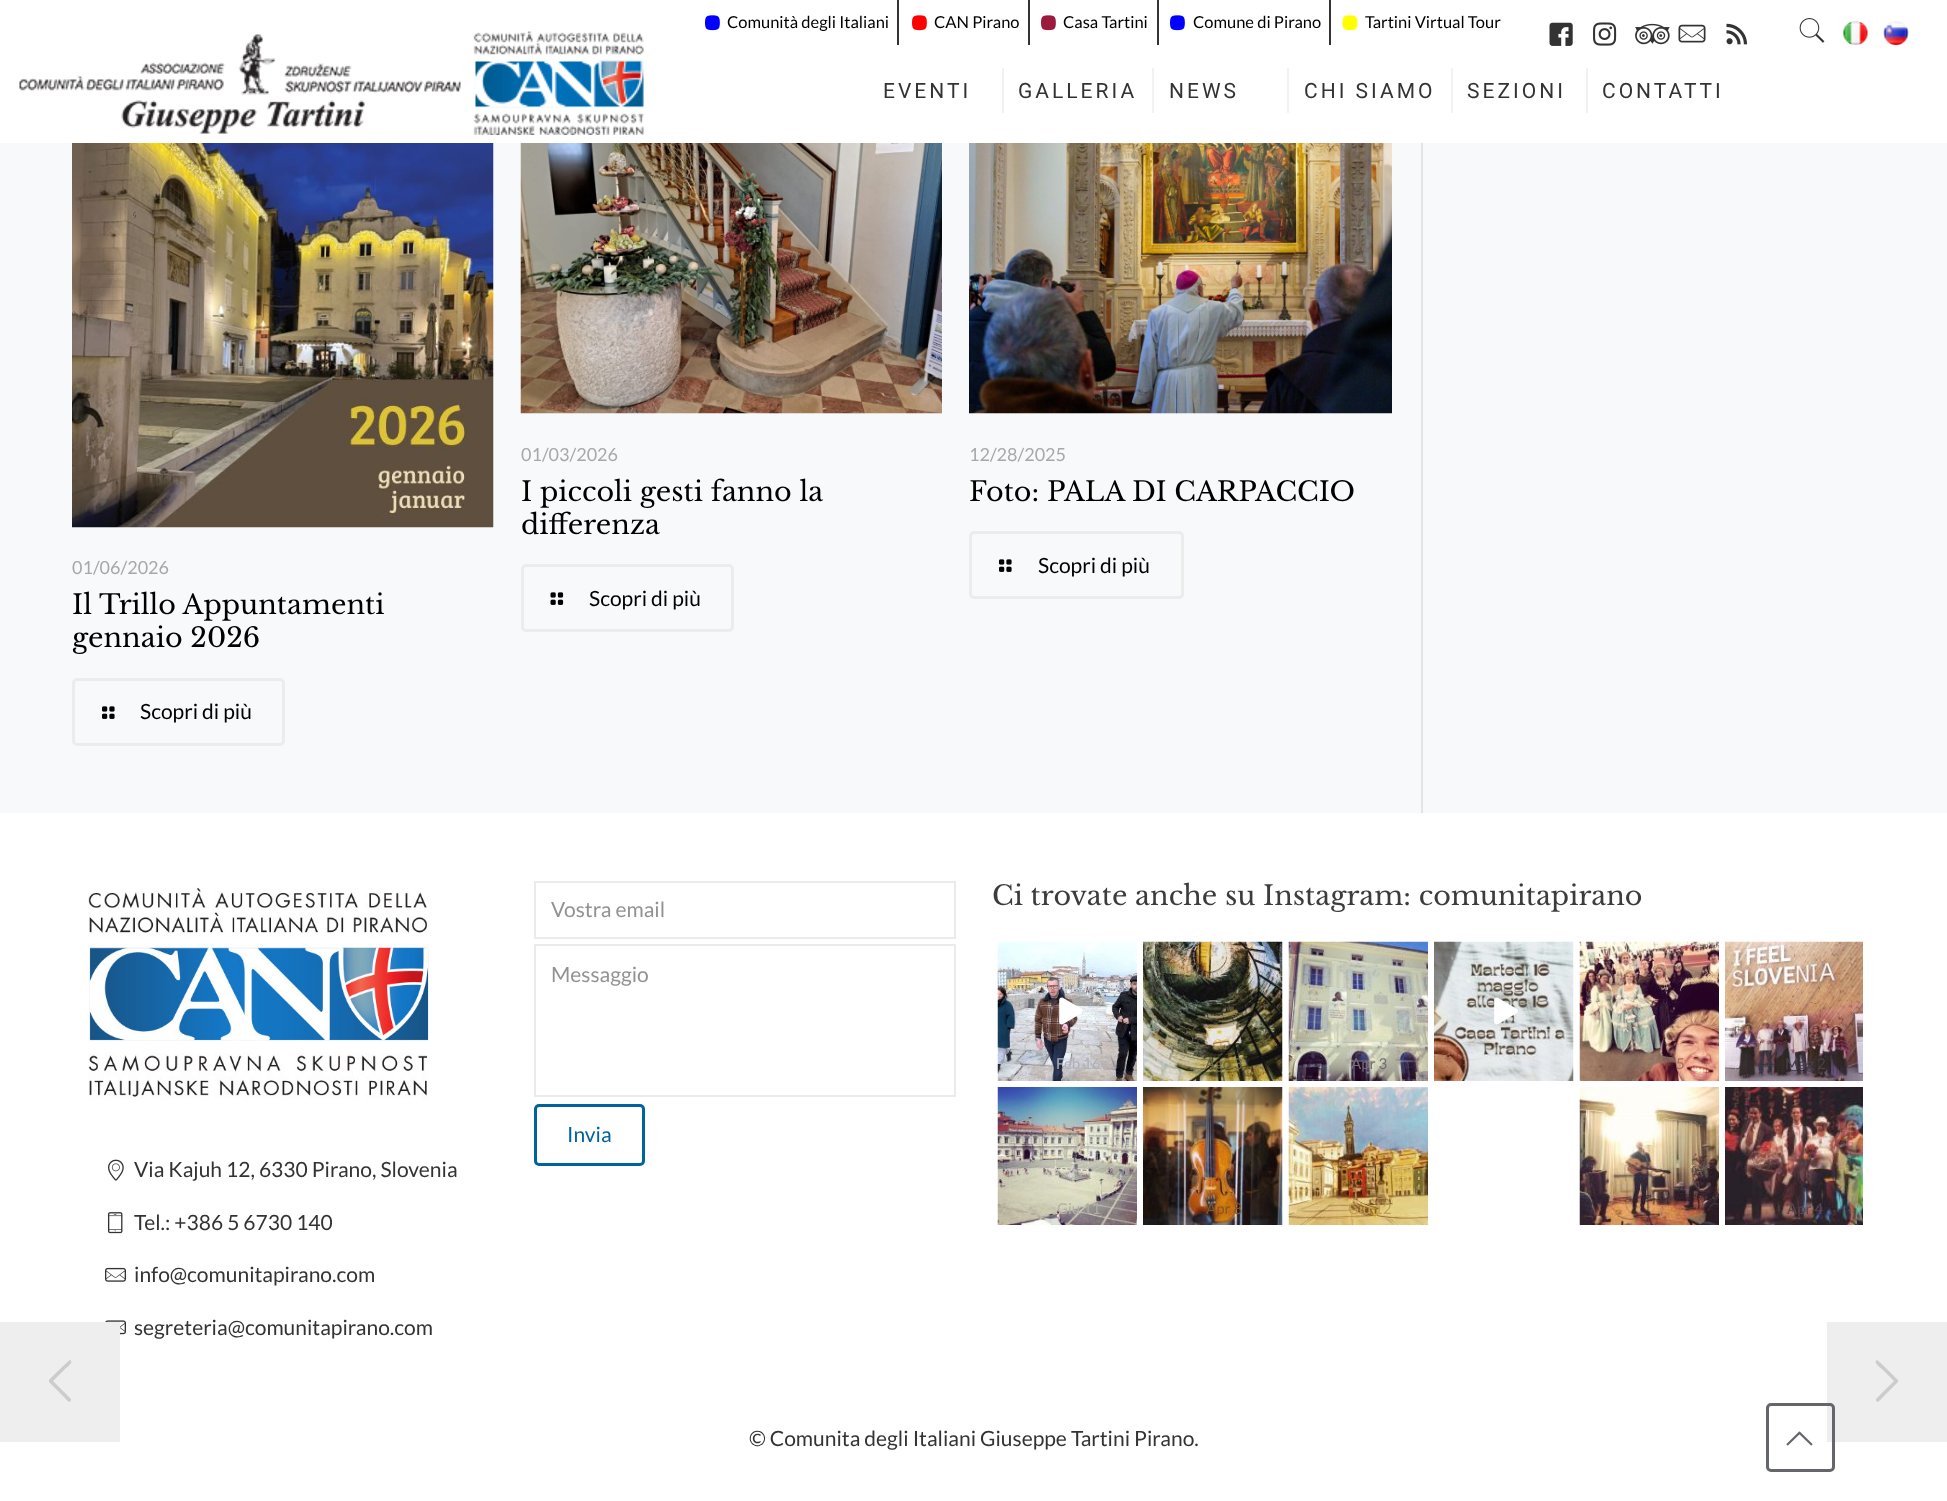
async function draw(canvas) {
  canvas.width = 1947
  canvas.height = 1501
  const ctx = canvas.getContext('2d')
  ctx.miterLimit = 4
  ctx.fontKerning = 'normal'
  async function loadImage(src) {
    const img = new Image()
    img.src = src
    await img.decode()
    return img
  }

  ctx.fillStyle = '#f7f9fa'
  ctx.fillRect(0, 0, 1947, 1501)
  ctx.fillStyle = '#fff'
  ctx.fillRect(0, 813, 1947, 688)
  ctx.drawImage(await loadImage('image35.png'), 105, 1320, 21, 15)
  ctx.fillStyle = '#eee'
  ctx.fillRect(0, 1322, 120, 120)
  ctx.fillStyle = '#ccc'
  ctx.beginPath()
  ctx.moveTo(71, 1399)
  ctx.lineTo(71, 1400)
  ctx.bezierCurveTo(70, 1405, 65, 1398, 65, 1398)
  ctx.lineTo(49, 1382)
  ctx.lineTo(49, 1380)
  ctx.bezierCurveTo(51, 1378, 69, 1360, 70, 1360)
  ctx.bezierCurveTo(75, 1362, 65, 1369, 65, 1369)
  ctx.lineTo(53, 1381)
  ctx.closePath()
  ctx.fill()
  ctx.fillStyle = '#fff'
  ctx.fillRect(0, 0, 1947, 143)
  ctx.fillStyle = '#333'
  ctx.fillRect(897, 0, 2, 45)
  ctx.drawImage(await loadImage('image0.png'), 705, 15, 15, 16)
  ctx.font = '16.5px Lato'
  ctx.fillStyle = '#000'
  ctx.fillText('Comunità degli Italiani', 727, 28)
  ctx.fillStyle = '#333'
  ctx.fillRect(1028, 0, 2, 45)
  ctx.drawImage(await loadImage('image1.png'), 912, 15, 15, 16)
  ctx.fillStyle = '#000'
  ctx.fillText('CAN Pirano', 934, 28)
  ctx.fillStyle = '#333'
  ctx.fillRect(1157, 0, 2, 45)
  ctx.drawImage(await loadImage('image2.png'), 1041, 15, 15, 16)
  ctx.fillStyle = '#000'
  ctx.fillText('Casa Tartini', 1063, 28)
  ctx.fillStyle = '#333'
  ctx.fillRect(1329, 0, 2, 45)
  ctx.drawImage(await loadImage('image0.png'), 1170, 15, 15, 16)
  ctx.fillStyle = '#000'
  ctx.fillText('Comune di Pirano', 1193, 28)
  ctx.drawImage(await loadImage('image3.png'), 1342, 15, 16, 16)
  ctx.fillText('Tartini Virtual Tour', 1365, 28)
  ctx.drawImage(await loadImage('image4.png'), 1549, 22, 24, 24)
  ctx.drawImage(await loadImage('image5.png'), 1593, 22, 24, 24)
  ctx.drawImage(await loadImage('image6.png'), 1635, 23, 35, 22)
  ctx.drawImage(await loadImage('image7.png'), 1678, 24, 28, 19)
  ctx.drawImage(await loadImage('image8.png'), 1726, 23, 21, 22)
  ctx.drawImage(await loadImage('image9.png'), 1799, 18, 26, 25)
  ctx.drawImage(await loadImage('image10.png'), 1843, 21, 25, 24)
  ctx.drawImage(await loadImage('image11.png'), 1883, 21, 26, 24)
  ctx.drawImage(await loadImage('image12.png'), 19, 31, 625, 104)
  ctx.fillStyle = '#f2f2f2'
  ctx.fillRect(1002, 68, 2, 45)
  ctx.letterSpacing = '3px'
  ctx.font = '21px Roboto'
  ctx.fillStyle = '#333'
  ctx.fillText('EVENTI', 883, 98)
  ctx.fillStyle = '#f2f2f2'
  ctx.fillRect(1152, 68, 2, 45)
  ctx.fillStyle = '#333'
  ctx.fillText('GALLERIA', 1018, 98)
  ctx.fillStyle = '#f2f2f2'
  ctx.fillRect(1287, 68, 2, 45)
  ctx.fillStyle = '#333'
  ctx.fillText('NEWS', 1169, 98)
  ctx.fillStyle = '#f2f2f2'
  ctx.fillRect(1451, 68, 2, 45)
  ctx.fillStyle = '#333'
  ctx.fillText('CHI SIAMO', 1304, 98)
  ctx.fillStyle = '#f2f2f2'
  ctx.fillRect(1586, 68, 2, 45)
  ctx.fillStyle = '#333'
  ctx.fillText('SEZIONI', 1467, 98)
  ctx.fillText('CONTATTI', 1602, 98)
  ctx.drawImage(await loadImage('image13.png'), 520, 143, 422, 271)
  ctx.letterSpacing = '0px'
  ctx.font = '18px Lato'
  ctx.fillStyle = '#a8a8a8'
  ctx.fillText('01/03/2026', 521, 461)
  ctx.font = '27px Libre Baskerville'
  ctx.fillStyle = '#000'
  ctx.fillText('I piccoli gesti fanno la', 521, 501)
  ctx.fillText('differenza', 521, 534)
  ctx.beginPath()
  ctx.roundRect(522.5, 565.5, 210, 65, 3.5)
  ctx.strokeStyle = '#ececec'
  ctx.lineWidth = 3
  ctx.stroke()
  ctx.drawImage(await loadImage('image14.png'), 550, 592, 14, 13)
  ctx.font = '21px Lato'
  ctx.fillText('Scopri di più', 589, 606)
  ctx.drawImage(await loadImage('image15.png'), 969, 143, 423, 271)
  ctx.font = '18px Lato'
  ctx.fillStyle = '#a8a8a8'
  ctx.fillText('12/28/2025', 969, 461)
  ctx.font = '27px Libre Baskerville'
  ctx.fillStyle = '#000'
  ctx.fillText('Foto: PALA DI CARPACCIO', 969, 501)
  ctx.beginPath()
  ctx.roundRect(970.5, 532.5, 212, 65, 3.5)
  ctx.stroke()
  ctx.drawImage(await loadImage('image16.png'), 999, 559, 13, 13)
  ctx.font = '21px Lato'
  ctx.fillText('Scopri di più', 1038, 573)
  ctx.drawImage(await loadImage('image17.png'), 72, 143, 422, 385)
  ctx.font = '18px Lato'
  ctx.fillStyle = '#a8a8a8'
  ctx.fillText('01/06/2026', 72, 574)
  ctx.font = '27px Libre Baskerville'
  ctx.fillStyle = '#000'
  ctx.fillText('Il Trillo Appuntamenti', 72, 614)
  ctx.fillText('gennaio 2026', 72, 647)
  ctx.beginPath()
  ctx.roundRect(73.5, 679.5, 210, 65, 3.5)
  ctx.stroke()
  ctx.drawImage(await loadImage('image16.png'), 102, 706, 13, 13)
  ctx.font = '21px Lato'
  ctx.fillText('Scopri di più', 140, 719)
  ctx.fillStyle = '#e3e5e6'
  ctx.fillRect(1421, 143, 1, 670)
  ctx.fillStyle = '#e1e3e4'
  ctx.fillRect(1422, 143, 1, 670)
  ctx.strokeStyle = '#ebebeb'
  ctx.lineWidth = 2
  ctx.strokeRect(535, 882, 420, 56)
  ctx.fillStyle = '#929292'
  ctx.fillText('Vostra email', 551, 917)
  ctx.strokeRect(535, 945, 420, 151)
  ctx.fillText('Messaggio', 551, 982)
  ctx.beginPath()
  ctx.roundRect(535.5, 1105.5, 108, 59, 3.5)
  ctx.strokeStyle = '#00639f'
  ctx.lineWidth = 3
  ctx.stroke()
  ctx.fillStyle = '#00639f'
  ctx.fillText('Invia', 567, 1142)
  ctx.font = '27px Libre Baskerville'
  ctx.fillStyle = '#3d3c3c'
  ctx.fillText('Ci trovate anche su Instagram: comunitapirano', 992, 905)
  ctx.drawImage(await loadImage('image18.png'), 997, 941, 140, 140)
  ctx.drawImage(await loadImage('image19.png'), 1059, 997, 24, 28)
  ctx.font = '15px Lato'
  ctx.fillStyle = '#aeb0b9'
  ctx.fillText('Feb 16', 1056, 1069)
  ctx.drawImage(await loadImage('image20.png'), 1143, 941, 140, 140)
  ctx.fillStyle = '#6f673b'
  ctx.fillText('Ago 3', 1205, 1069)
  ctx.drawImage(await loadImage('image21.png'), 1288, 941, 140, 140)
  ctx.fillStyle = '#766d73'
  ctx.fillText('Apr 3', 1351, 1069)
  ctx.drawImage(await loadImage('image22.png'), 1434, 941, 140, 140)
  ctx.drawImage(await loadImage('image23.png'), 1494, 997, 24, 28)
  ctx.drawImage(await loadImage('image24.png'), 1579, 941, 140, 140)
  ctx.fillStyle = '#a46f61'
  ctx.fillText('5', 1676, 1069)
  ctx.drawImage(await loadImage('image25.png'), 1725, 941, 138, 140)
  ctx.fillStyle = '#4b4048'
  ctx.fillText('Mag 2', 1785, 1069)
  ctx.drawImage(await loadImage('image26.png'), 997, 1087, 140, 138)
  ctx.fillStyle = '#b1aea3'
  ctx.fillText('Giu 11', 1057, 1214)
  ctx.drawImage(await loadImage('image27.png'), 1143, 1087, 140, 138)
  ctx.fillStyle = '#875526'
  ctx.fillText('Apr 8', 1206, 1214)
  ctx.drawImage(await loadImage('image28.png'), 1288, 1087, 140, 138)
  ctx.fillStyle = '#c09e57'
  ctx.fillText('Giu 12', 1348, 1214)
  ctx.drawImage(await loadImage('image29.png'), 1579, 1087, 140, 138)
  ctx.drawImage(await loadImage('image30.png'), 1725, 1087, 138, 138)
  ctx.fillStyle = '#59454c'
  ctx.fillText('Apr 4', 1787, 1214)
  ctx.drawImage(await loadImage('image31.png'), 88, 887, 341, 212)
  ctx.drawImage(await loadImage('image32.png'), 108, 1159, 16, 22)
  ctx.font = '21px Lato'
  ctx.fillStyle = '#333'
  ctx.fillText('Via Kajuh 12, 6330 Pirano, Slovenia', 134, 1177)
  ctx.drawImage(await loadImage('image33.png'), 108, 1212, 15, 22)
  ctx.fillText('Tel.: +386 5 6730 140', 134, 1230)
  ctx.drawImage(await loadImage('image34.png'), 105, 1267, 21, 15)
  ctx.fillText('info@comunitapirano.com', 134, 1282)
  ctx.fillText('segreteria@comunitapirano.com', 134, 1335)
  ctx.fillText('© Comunita degli Italiani Giuseppe Tartini Pirano.', 749, 1446)
  ctx.fillStyle = '#eee'
  ctx.fillRect(1827, 1322, 120, 120)
  ctx.fillStyle = '#ccc'
  ctx.beginPath()
  ctx.moveTo(1876, 1399)
  ctx.lineTo(1894, 1381)
  ctx.lineTo(1882, 1369)
  ctx.bezierCurveTo(1882, 1369, 1872, 1362, 1877, 1360)
  ctx.bezierCurveTo(1878, 1360, 1896, 1378, 1898, 1380)
  ctx.lineTo(1898, 1382)
  ctx.lineTo(1882, 1398)
  ctx.bezierCurveTo(1882, 1398, 1877, 1405, 1876, 1400)
  ctx.closePath()
  ctx.fill()
  ctx.beginPath()
  ctx.roundRect(1767.5, 1404.5, 66, 66, 3.5)
  ctx.strokeStyle = '#65666c'
  ctx.stroke()
  ctx.drawImage(await loadImage('image36.png'), 1786, 1431, 27, 15)
}

draw(document.querySelector('canvas'))
